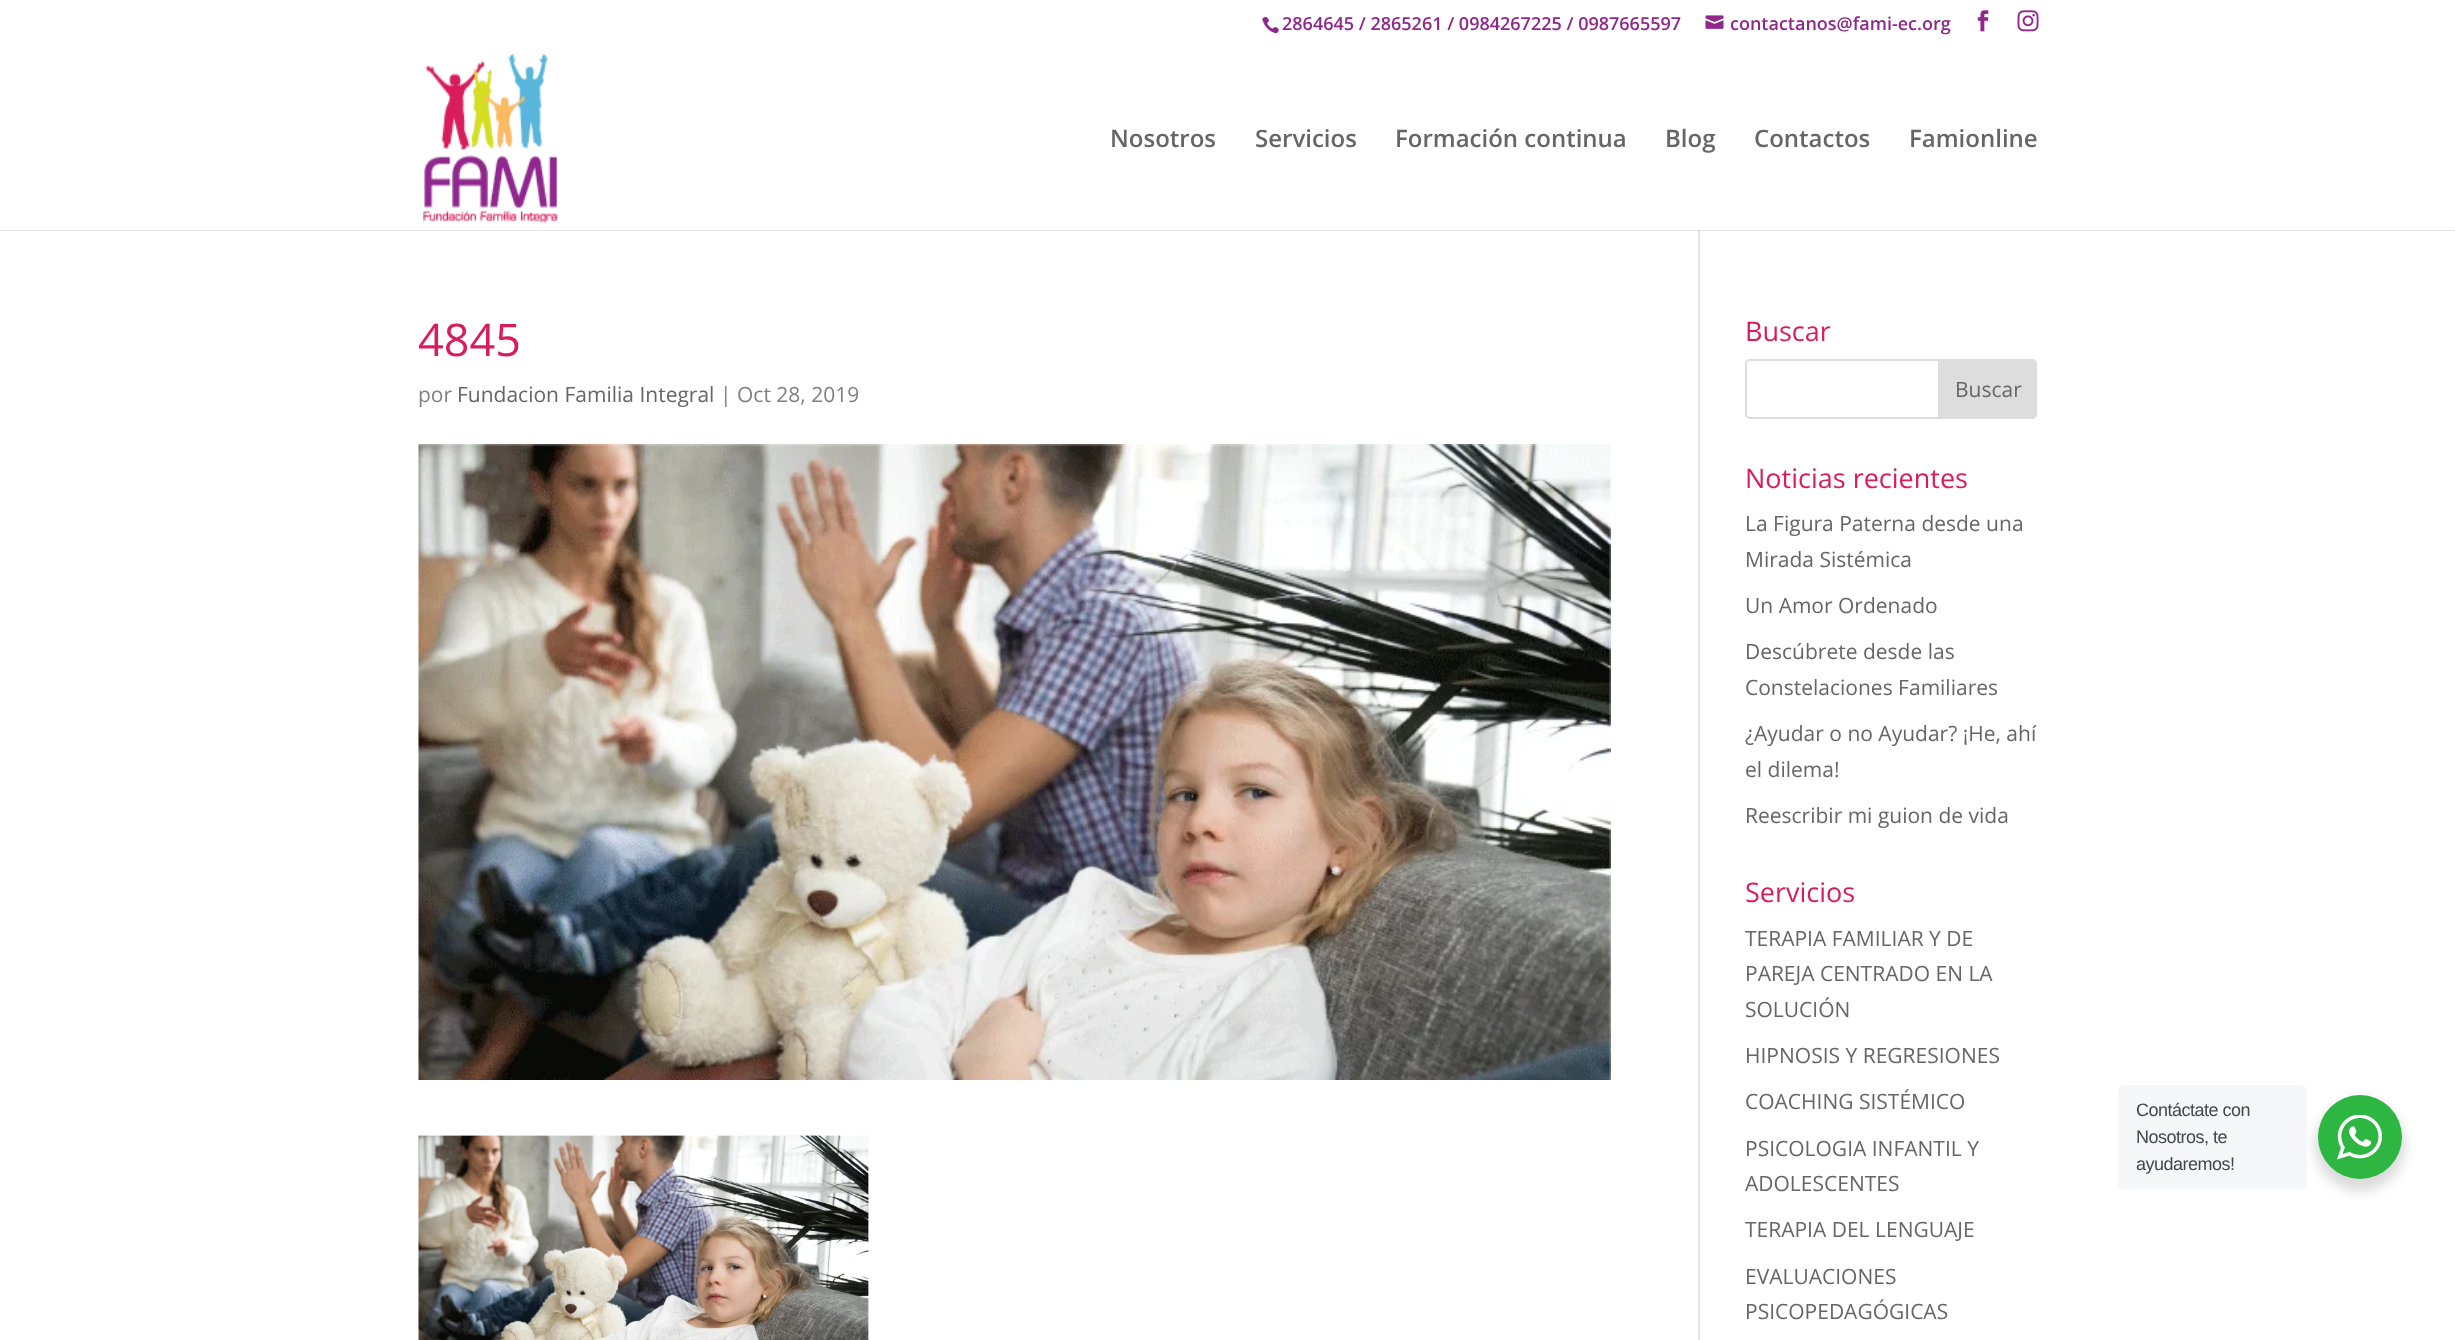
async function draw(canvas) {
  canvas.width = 2455
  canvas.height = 1340
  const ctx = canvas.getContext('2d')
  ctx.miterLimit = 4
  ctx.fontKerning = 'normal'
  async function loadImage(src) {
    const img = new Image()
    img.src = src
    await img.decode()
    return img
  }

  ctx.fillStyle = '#fff'
  ctx.fillRect(0, 0, 2455, 1340)
  ctx.drawImage(await loadImage('image0.png'), 1262, 16, 17, 18)
  ctx.font = '600 18px Open Sans'
  ctx.fillStyle = '#90288c'
  ctx.fillText('2864645 / 2865261 / 0984267225 / 0987665597', 1282, 30)
  ctx.drawImage(await loadImage('image1.png'), 1705, 15, 19, 14)
  ctx.fillText('contactanos@fami-ec.org', 1730, 30)
  ctx.drawImage(await loadImage('image2.png'), 1977, 10, 12, 22)
  ctx.drawImage(await loadImage('image3.png'), 2017, 10, 22, 22)
  ctx.fillStyle = '#e2e2e2'
  ctx.fillRect(1698, 230, 2, 1110)
  ctx.fillStyle = '#0000001a'
  ctx.beginPath()
  ctx.moveTo(0, 230)
  ctx.lineTo(0, 231)
  ctx.lineTo(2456, 231)
  ctx.lineTo(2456, 48)
  ctx.lineTo(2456, 230)
  ctx.closePath()
  ctx.fill()
  ctx.drawImage(await loadImage('image4.png'), 423, 53, 135, 170)
  ctx.font = '600 24px Open Sans'
  ctx.fillStyle = '#666'
  ctx.fillText('Nosotros', 1110, 147)
  ctx.fillText('Servicios', 1255, 147)
  ctx.fillText('Formación continua', 1395, 147)
  ctx.fillText('Blog', 1665, 147)
  ctx.fillText('Contactos', 1754, 147)
  ctx.fillText('Famionline', 1909, 147)
  ctx.font = '45px Open Sans'
  ctx.fillStyle = '#d91c5c'
  ctx.fillText('4845', 418, 356)
  ctx.font = '21px Open Sans'
  ctx.fillStyle = '#808080'
  ctx.fillText('por', 418, 402)
  ctx.fillStyle = '#666'
  ctx.fillText('Fundacion Familia Integral', 457, 402)
  ctx.fillStyle = '#808080'
  ctx.fillText('| Oct 28, 2019', 720, 402)
  ctx.drawImage(await loadImage('image5.png'), 418, 444, 1193, 636)
  ctx.drawImage(await loadImage('image6.png'), 418, 1135, 451, 205)
  ctx.font = '27px Open Sans'
  ctx.fillStyle = '#d91c5c'
  ctx.fillText('Buscar', 1745, 341)
  ctx.beginPath()
  ctx.roundRect(1746, 360, 290, 58, 4)
  ctx.strokeStyle = '#ddd'
  ctx.lineWidth = 2
  ctx.stroke()
  ctx.fillStyle = '#ddd'
  ctx.beginPath()
  ctx.roundRect(1939, 360, 97, 58, [0, 4, 4, 0])
  ctx.fill()
  ctx.stroke()
  ctx.font = '21px Open Sans'
  ctx.fillStyle = '#666'
  ctx.fillText('Buscar', 1955, 397)
  ctx.font = '27px Open Sans'
  ctx.fillStyle = '#d91c5c'
  ctx.fillText('Noticias recientes', 1745, 488)
  ctx.font = '21px Open Sans'
  ctx.fillStyle = '#666'
  ctx.fillText('La Figura Paterna desde una', 1745, 531)
  ctx.fillText('Mirada Sistémica', 1745, 567)
  ctx.fillText('Un Amor Ordenado', 1745, 613)
  ctx.fillText('Descúbrete desde las', 1745, 659)
  ctx.fillText('Constelaciones Familiares', 1745, 695)
  ctx.fillText('¿Ayudar o no Ayudar? ¡He, ahí', 1745, 741)
  ctx.fillText('el dilema!', 1745, 777)
  ctx.fillText('Reescribir mi guion de vida', 1745, 823)
  ctx.font = '27px Open Sans'
  ctx.fillStyle = '#d91c5c'
  ctx.fillText('Servicios', 1745, 902)
  ctx.font = '21px Open Sans'
  ctx.fillStyle = '#666'
  ctx.fillText('TERAPIA FAMILIAR Y DE', 1745, 946)
  ctx.fillText('PAREJA CENTRADO EN LA', 1745, 981)
  ctx.fillText('SOLUCIÓN', 1745, 1017)
  ctx.fillText('HIPNOSIS Y REGRESIONES', 1745, 1063)
  ctx.fillText('COACHING SISTÉMICO', 1745, 1109)
  ctx.fillText('PSICOLOGIA INFANTIL Y', 1745, 1156)
  ctx.fillText('ADOLESCENTES', 1745, 1191)
  ctx.fillText('TERAPIA DEL LENGUAJE', 1745, 1237)
  ctx.fillText('EVALUACIONES', 1745, 1284)
  ctx.fillText('PSICOPEDAGÓGICAS', 1745, 1319)
  ctx.fillStyle = '#00000024'
  ctx.filter = 'blur(6px)'
  ctx.beginPath()
  ctx.roundRect(2315, 1101, 90, 90, 45)
  ctx.fill()
  ctx.filter = 'none'
  ctx.fillStyle = '#f5f7f9'
  ctx.beginPath()
  ctx.roundRect(2118, 1085, 189, 105, 6)
  ctx.fill()
  ctx.letterSpacing = '-0.5px'
  ctx.font = '18px Liberation Sans'
  ctx.fillStyle = '#43474e'
  ctx.fillText('Contáctate con', 2136, 1116)
  ctx.fillText('Nosotros, te', 2136, 1143)
  ctx.fillText('ayudaremos!', 2136, 1170)
  ctx.fillStyle = '#2db742'
  ctx.beginPath()
  ctx.arc(2360, 1137, 42, 0, 2 * Math.PI)
  ctx.fill()
  ctx.drawImage(await loadImage('image7.png'), 2337, 1115, 45, 45)
}

draw(document.querySelector('canvas'))
